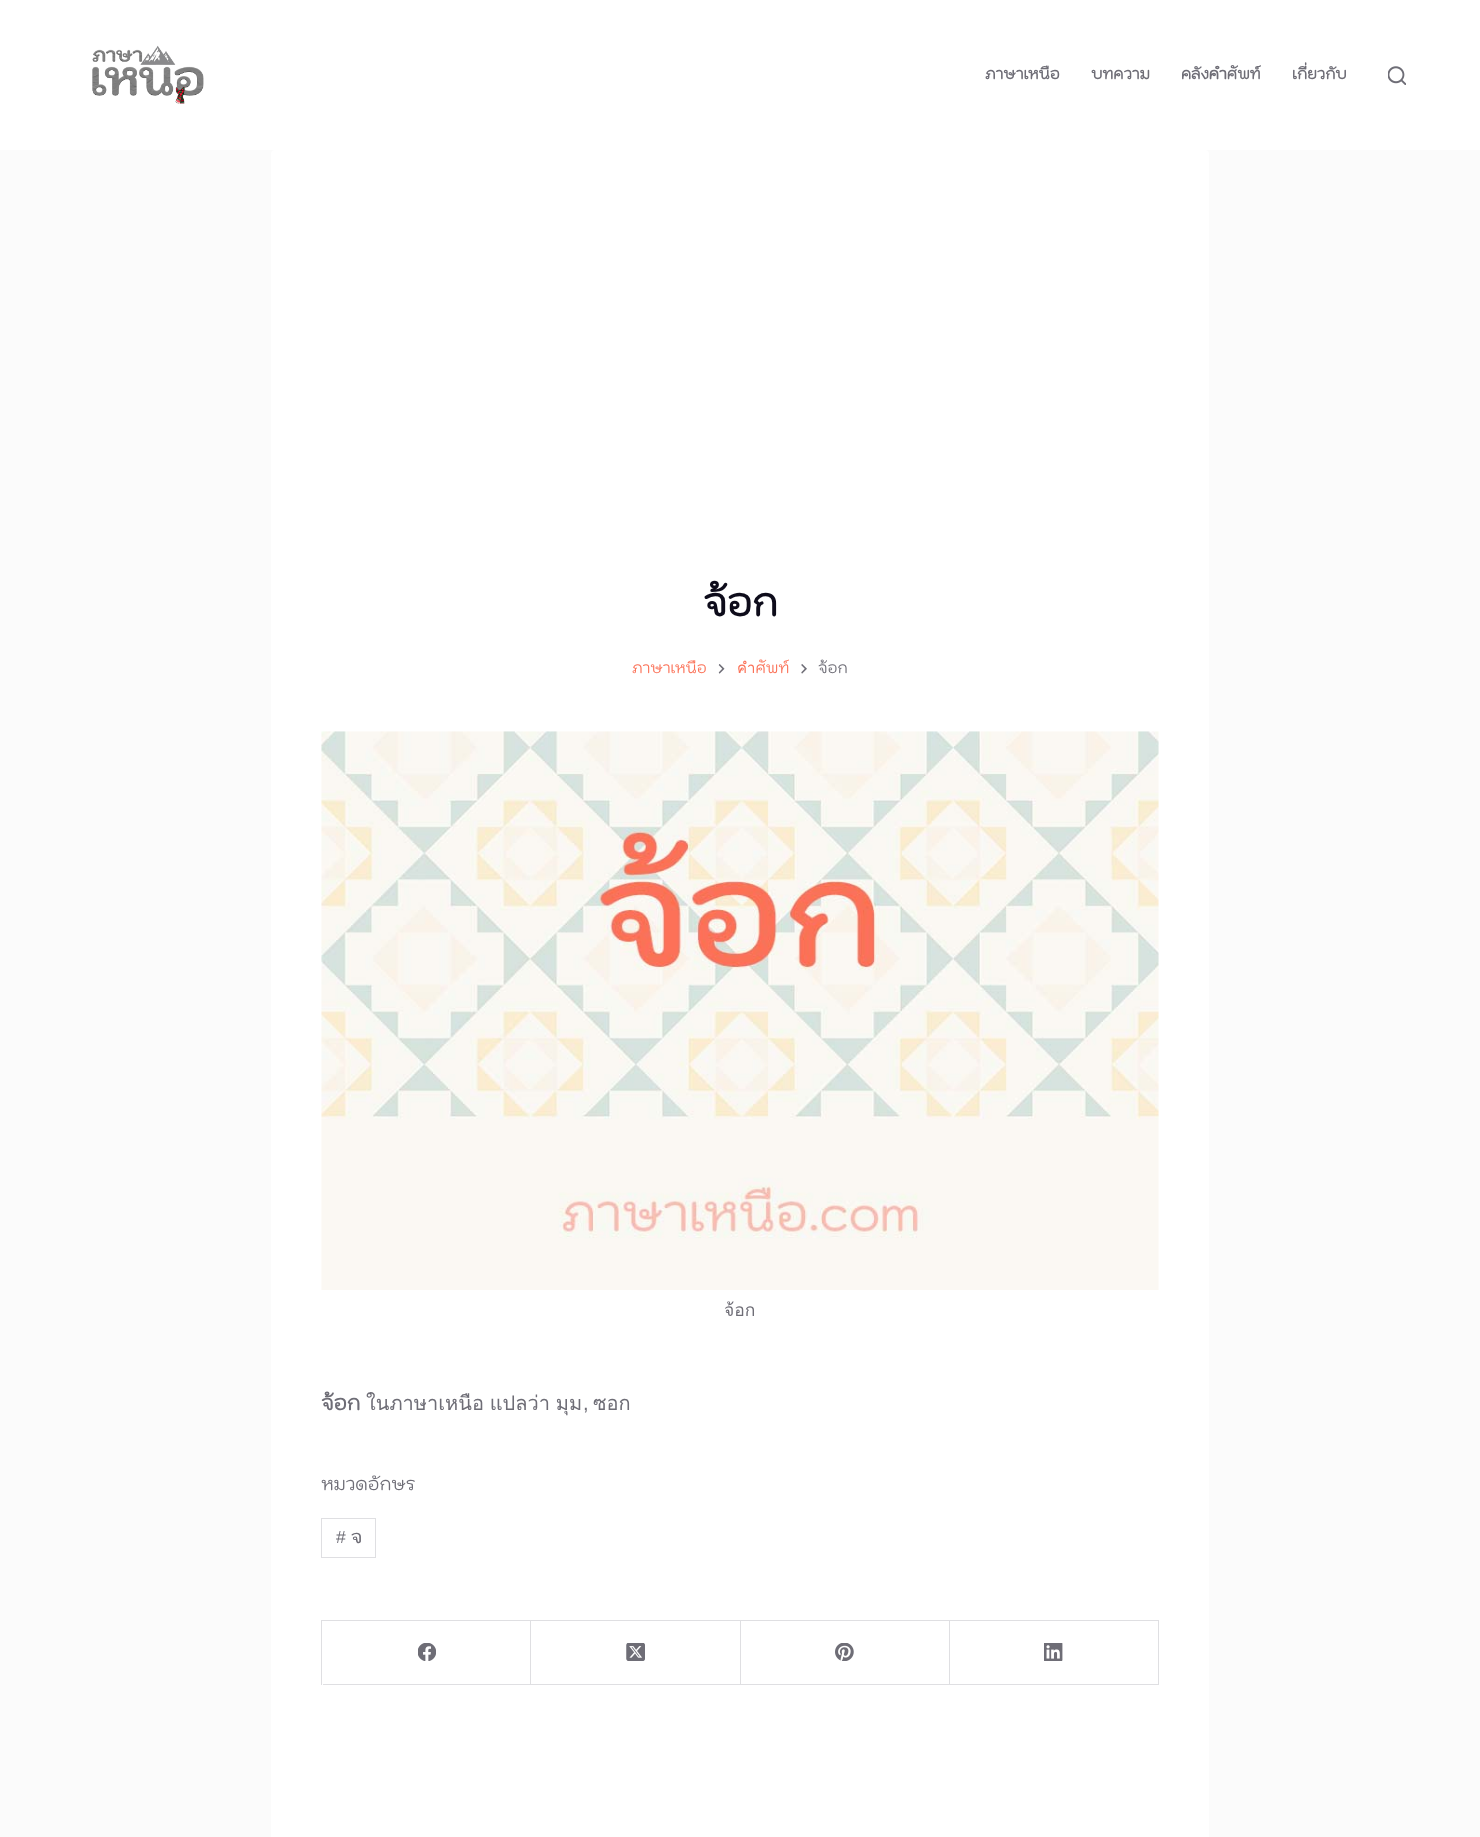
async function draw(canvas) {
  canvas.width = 1480
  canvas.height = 1837
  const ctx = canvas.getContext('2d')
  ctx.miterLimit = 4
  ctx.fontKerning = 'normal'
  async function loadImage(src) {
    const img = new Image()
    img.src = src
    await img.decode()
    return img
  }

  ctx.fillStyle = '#fbfbfb'
  ctx.fillRect(0, 0, 1480, 1837)
  ctx.fillStyle = '#fff'
  ctx.fillRect(0, 0, 1480, 150)
  ctx.drawImage(await loadImage('image0.png'), 92, 45, 112, 59)
  ctx.font = 'bold 15px Kodchasan'
  ctx.fillStyle = '#6e6d76'
  ctx.fillText('ภาษาเหนือ', 985, 79)
  ctx.fillText('บทความ', 1091, 79)
  ctx.fillText('คลังคำศัพท์', 1181, 79)
  ctx.fillText('เกี่ยวกับ', 1292, 79)
  ctx.drawImage(await loadImage('image1.png'), 1388, 66, 18, 19)
  ctx.fillStyle = '#fff'
  ctx.beginPath()
  ctx.roundRect(271, 150, 938, 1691, 4)
  ctx.fill()
  ctx.font = 'bold 38px Kodchasan'
  ctx.fillStyle = '#0e0c1b'
  ctx.fillText('จ้อก', 703, 616)
  ctx.font = '15px Kodchasan'
  ctx.fillStyle = '#fb7258'
  ctx.fillText('ภาษาเหนือ', 632, 673)
  ctx.drawImage(await loadImage('image2.png'), 718, 664, 7, 10)
  ctx.fillText('คำศัพท์', 737, 673)
  ctx.drawImage(await loadImage('image3.png'), 801, 664, 6, 10)
  ctx.fillStyle = '#6e6d76'
  ctx.fillText('จ้อก', 818, 673)
  ctx.drawImage(await loadImage('image4.png'), 321, 731, 838, 559)
  ctx.font = '17.5px Loma'
  ctx.fillText('จ้อก', 724, 1316)
  ctx.font = 'bold 20px Kodchasan'
  ctx.fillText('จ้อก', 321, 1410)
  ctx.wordSpacing = '-1px'
  ctx.font = '20px Loma'
  ctx.fillText('ในภาษาเหนือ แปลว่า มุม', 366, 1410)
  ctx.wordSpacing = '0px'
  ctx.font = '20px Liberation Sans'
  ctx.fillText(',', 583, 1410)
  ctx.font = '20px Loma'
  ctx.fillText('ซอก', 593, 1410)
  ctx.font = '17.5px Kodchasan'
  ctx.fillText('หมวดอักษร', 321, 1490)
  ctx.strokeStyle = '#dfdfe2'
  ctx.strokeRect(321.5, 1518.5, 54, 39)
  ctx.font = '17.5px Liberation Sans'
  ctx.fillText('#', 336, 1543)
  ctx.font = '500 17.5px Kodchasan'
  ctx.fillText('จ', 351, 1543)
  ctx.fillStyle = '#dfdfe2'
  ctx.fillRect(321, 1620, 838, 1)
  ctx.fillRect(321, 1620, 1, 65)
  ctx.fillRect(530, 1621, 1, 64)
  ctx.fillRect(323, 1684, 208, 1)
  ctx.drawImage(await loadImage('image5.png'), 418, 1643, 18, 18)
  ctx.fillRect(740, 1621, 1, 64)
  ctx.fillRect(531, 1684, 210, 1)
  ctx.drawImage(await loadImage('image6.png'), 626, 1643, 19, 18)
  ctx.fillRect(949, 1621, 1, 64)
  ctx.fillRect(741, 1684, 209, 1)
  ctx.drawImage(await loadImage('image7.png'), 835, 1643, 19, 18)
  ctx.fillRect(1158, 1621, 1, 64)
  ctx.fillRect(950, 1684, 209, 1)
  ctx.drawImage(await loadImage('image8.png'), 1044, 1643, 19, 18)
}

draw(document.querySelector('canvas'))
